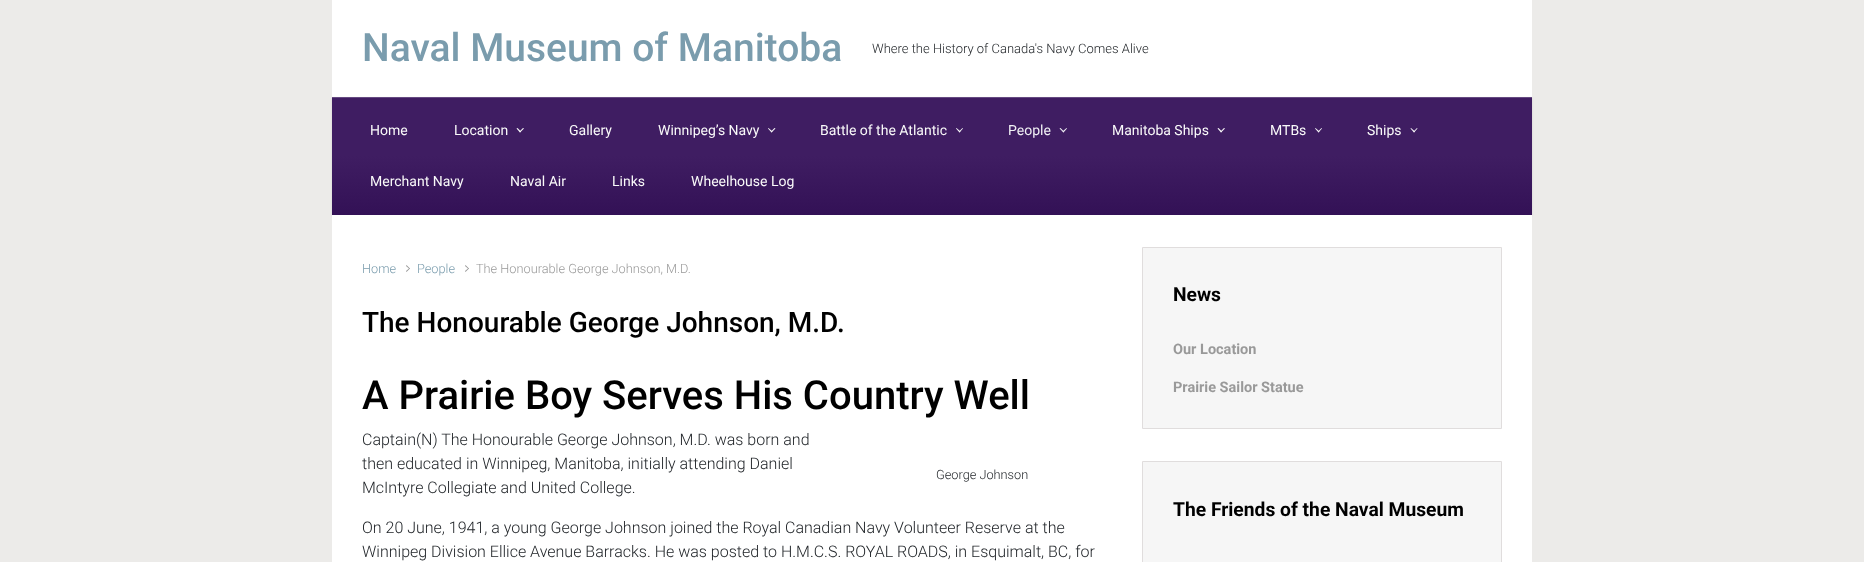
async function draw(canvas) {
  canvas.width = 1864
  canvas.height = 562
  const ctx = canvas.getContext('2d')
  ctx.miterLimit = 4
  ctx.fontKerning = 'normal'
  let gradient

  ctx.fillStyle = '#ecebe9'
  ctx.fillRect(0, 0, 1864, 562)
  ctx.fillStyle = '#fff'
  ctx.fillRect(332, 0, 1200, 97)
  ctx.font = '500 39px Roboto'
  ctx.fillStyle = '#7a9cad'
  ctx.fillText('Naval Museum of Manitoba', 362, 61)
  ctx.font = '300 13px Roboto'
  ctx.fillStyle = '#212529'
  ctx.fillText('Where the History of Canada\'s Navy Comes Alive', 872, 53)
  ctx.fillStyle = '#0000001a'
  ctx.filter = 'blur(1px)'
  ctx.beginPath()
  ctx.rect(332, 98, 1200, 118)
  ctx.fill()
  ctx.filter = 'none'
  gradient = ctx.createLinearGradient(932, 97, 932, 215)
  gradient.addColorStop(0.5, '#3f1d62')
  gradient.addColorStop(1, '#331156')
  ctx.fillStyle = gradient
  ctx.fillRect(332, 98, 1200, 117)
  ctx.fillStyle = '#654a81'
  ctx.fillRect(332, 97, 1200, 1)
  ctx.font = '14px Roboto'
  ctx.fillStyle = '#f9f9f9'
  ctx.fillText('Home', 370, 135)
  ctx.fillText('Location', 454, 135)
  ctx.beginPath()
  ctx.moveTo(523, 128)
  ctx.lineTo(524, 128.5)
  ctx.lineTo(520, 132.5)
  ctx.lineTo(519.5, 131.5)
  ctx.closePath()
  ctx.fill()
  ctx.beginPath()
  ctx.moveTo(517.5, 128)
  ctx.lineTo(521, 131.5)
  ctx.lineTo(520, 132.5)
  ctx.lineTo(516.5, 128.5)
  ctx.closePath()
  ctx.fill()
  ctx.fillText('Gallery', 569, 135)
  ctx.fillText('Winnipeg’s Navy', 658, 135)
  ctx.beginPath()
  ctx.moveTo(774.5, 128)
  ctx.lineTo(775.5, 128.5)
  ctx.lineTo(771.5, 132.5)
  ctx.lineTo(771, 131.5)
  ctx.closePath()
  ctx.fill()
  ctx.beginPath()
  ctx.moveTo(768.5, 128)
  ctx.lineTo(772.5, 131.5)
  ctx.lineTo(771.5, 132.5)
  ctx.lineTo(768, 128.5)
  ctx.closePath()
  ctx.fill()
  ctx.fillText('Battle of the Atlantic', 820, 135)
  ctx.beginPath()
  ctx.moveTo(962.5, 128)
  ctx.lineTo(963, 128.5)
  ctx.lineTo(959.5, 132.5)
  ctx.lineTo(959, 131.5)
  ctx.closePath()
  ctx.fill()
  ctx.beginPath()
  ctx.moveTo(956.5, 128)
  ctx.lineTo(960.5, 131.5)
  ctx.lineTo(959.5, 132.5)
  ctx.lineTo(956, 128.5)
  ctx.closePath()
  ctx.fill()
  ctx.fillStyle = '#f0f0f4'
  ctx.fillText('People', 1008, 135)
  ctx.beginPath()
  ctx.moveTo(1066.5, 128)
  ctx.lineTo(1067, 128.5)
  ctx.lineTo(1063.5, 132.5)
  ctx.lineTo(1062.5, 131.5)
  ctx.closePath()
  ctx.fill()
  ctx.beginPath()
  ctx.moveTo(1060.5, 128)
  ctx.lineTo(1064, 131.5)
  ctx.lineTo(1063.5, 132.5)
  ctx.lineTo(1059.5, 128.5)
  ctx.closePath()
  ctx.fill()
  ctx.fillStyle = '#f9f9f9'
  ctx.fillText('Manitoba Ships', 1112, 135)
  ctx.beginPath()
  ctx.moveTo(1224, 128)
  ctx.lineTo(1225, 128.5)
  ctx.lineTo(1221, 132.5)
  ctx.lineTo(1220.5, 131.5)
  ctx.closePath()
  ctx.fill()
  ctx.beginPath()
  ctx.moveTo(1218.5, 128)
  ctx.lineTo(1222, 131.5)
  ctx.lineTo(1221, 132.5)
  ctx.lineTo(1217.5, 128.5)
  ctx.closePath()
  ctx.fill()
  ctx.fillText('MTBs', 1270, 135)
  ctx.beginPath()
  ctx.moveTo(1321.5, 128)
  ctx.lineTo(1322, 128.5)
  ctx.lineTo(1318.5, 132.5)
  ctx.lineTo(1318, 131.5)
  ctx.closePath()
  ctx.fill()
  ctx.beginPath()
  ctx.moveTo(1315.5, 128)
  ctx.lineTo(1319.5, 131.5)
  ctx.lineTo(1318.5, 132.5)
  ctx.lineTo(1315, 128.5)
  ctx.closePath()
  ctx.fill()
  ctx.fillText('Ships', 1367, 135)
  ctx.beginPath()
  ctx.moveTo(1417, 128)
  ctx.lineTo(1417.5, 128.5)
  ctx.lineTo(1414, 132.5)
  ctx.lineTo(1413.5, 131.5)
  ctx.closePath()
  ctx.fill()
  ctx.beginPath()
  ctx.moveTo(1411, 128)
  ctx.lineTo(1415, 131.5)
  ctx.lineTo(1414, 132.5)
  ctx.lineTo(1410.5, 128.5)
  ctx.closePath()
  ctx.fill()
  ctx.fillText('Merchant Navy', 370, 186)
  ctx.fillText('Naval Air', 510, 186)
  ctx.fillText('Links', 612, 186)
  ctx.fillText('Wheelhouse Log', 691, 186)
  ctx.fillStyle = '#fff'
  ctx.fillRect(332, 215, 1200, 347)
  ctx.font = '300 12.75px Roboto'
  ctx.fillStyle = '#7a9cad'
  ctx.fillText('Home', 362, 273)
  ctx.fillText('People', 417, 273)
  ctx.fillStyle = '#999'
  ctx.beginPath()
  ctx.moveTo(406, 266)
  ctx.lineTo(406.5, 265)
  ctx.lineTo(410, 268.5)
  ctx.lineTo(409.5, 269)
  ctx.closePath()
  ctx.fill()
  ctx.beginPath()
  ctx.moveTo(406, 271)
  ctx.lineTo(409.5, 268)
  ctx.lineTo(410, 268.5)
  ctx.lineTo(406.5, 272)
  ctx.closePath()
  ctx.moveTo(465, 266)
  ctx.lineTo(465.5, 265)
  ctx.lineTo(469, 268.5)
  ctx.lineTo(468.5, 269)
  ctx.closePath()
  ctx.fill()
  ctx.beginPath()
  ctx.moveTo(465, 271)
  ctx.lineTo(468.5, 268)
  ctx.lineTo(469, 268.5)
  ctx.lineTo(465.5, 272)
  ctx.closePath()
  ctx.fill()
  ctx.fillText('The Honourable George Johnson, M.D.', 476, 273)
  ctx.font = '500 28px Roboto'
  ctx.fillStyle = '#000'
  ctx.fillText('The Honourable George Johnson, M.D.', 362, 332)
  ctx.font = '500 40px Roboto'
  ctx.fillText('A Prairie Boy Serves His Country Well', 362, 409)
  ctx.font = '300 16px Roboto'
  ctx.fillStyle = '#212529'
  ctx.fillText('Captain(N) The Honourable George Johnson, M.D. was born and', 362, 445)
  ctx.fillText('then educated in Winnipeg, Manitoba, initially attending Daniel', 362, 469)
  ctx.fillText('McIntyre Collegiate and United College.', 362, 493)
  ctx.font = '300 12.75px Roboto'
  ctx.fillText('George Johnson', 936, 479)
  ctx.font = '300 16px Roboto'
  ctx.fillText('On 20 June, 1941, a young George Johnson joined the Royal Canadian Navy Volunteer Reserve at the', 362, 533)
  ctx.fillText('Winnipeg Division Ellice Avenue Barracks. He was posted to H.M.C.S. ROYAL ROADS, in Esquimalt, BC, for', 362, 557)
  ctx.fillStyle = '#f6f6f6'
  ctx.beginPath()
  ctx.rect(1142.5, 247.5, 359, 181)
  ctx.fill()
  ctx.strokeStyle = '#e0dddd'
  ctx.stroke()
  ctx.font = 'bold 19.25px Roboto'
  ctx.fillStyle = '#000'
  ctx.fillText('News', 1173, 301)
  ctx.font = 'bold 14.5px Roboto'
  ctx.fillStyle = '#999'
  ctx.fillText('Our Location', 1173, 354)
  ctx.fillText('Prairie Sailor Statue', 1173, 392)
  ctx.fillStyle = '#f6f6f6'
  ctx.beginPath()
  ctx.rect(1142.5, 461.5, 359, 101)
  ctx.fill()
  ctx.stroke()
  ctx.font = 'bold 19.25px Roboto'
  ctx.fillStyle = '#000'
  ctx.fillText('The Friends of the Naval Museum', 1173, 516)
}

draw(document.querySelector('canvas'))
